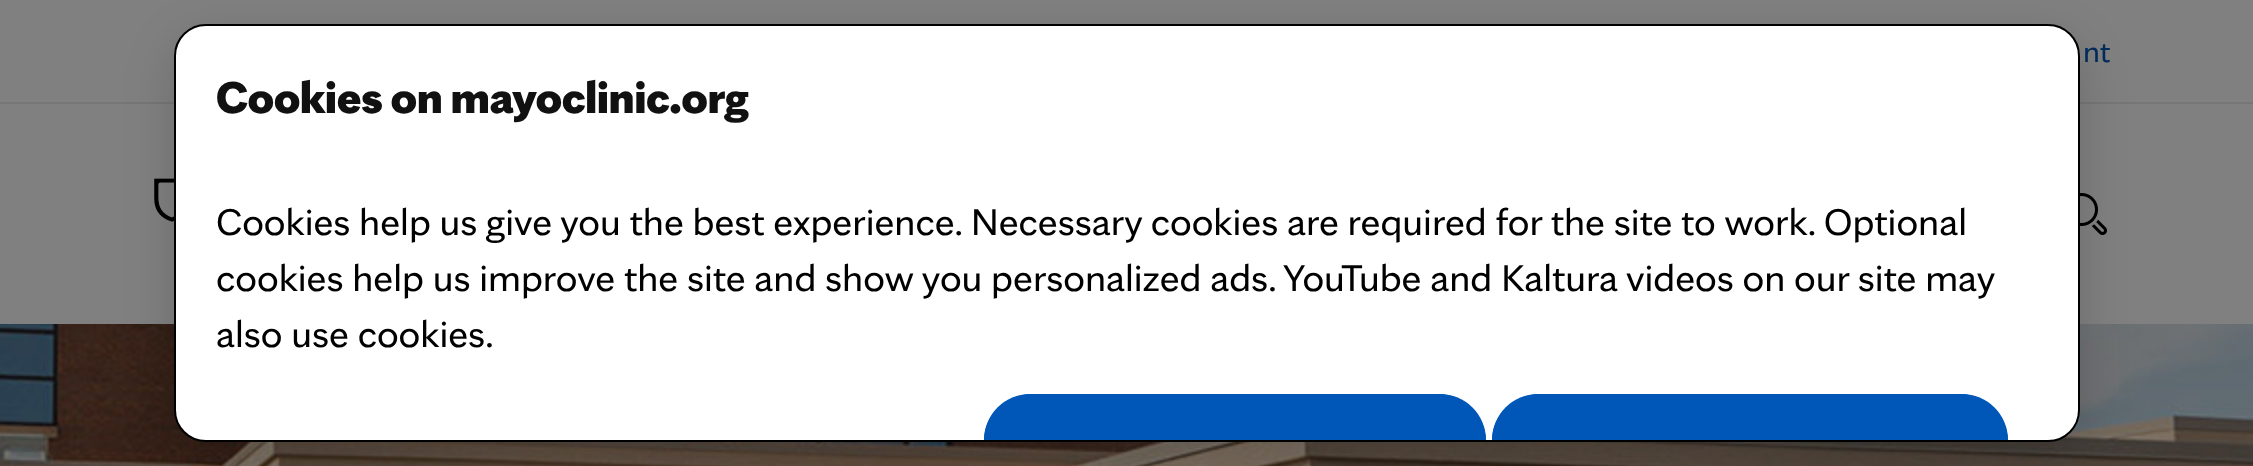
async function draw(canvas) {
  canvas.width = 2253
  canvas.height = 466
  const ctx = canvas.getContext('2d')
  ctx.miterLimit = 4
  ctx.fontKerning = 'normal'
  async function loadImage(src) {
    const img = new Image()
    img.src = src
    await img.decode()
    return img
  }

  ctx.fillStyle = '#808080'
  ctx.fillRect(0, 0, 2253, 466)
  ctx.fillStyle = '#767676'
  ctx.fillRect(0, 102, 2253, 2)
  ctx.font = '32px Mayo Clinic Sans'
  ctx.fillStyle = '#002c5c'
  ctx.fillText('nt', 2083, 62)
  ctx.drawImage(await loadImage('image0.png'), 154, 178, 20, 44)
  ctx.drawImage(await loadImage('image1.png'), 2080, 193, 27, 42)
  ctx.drawImage(await loadImage('image2.png'), 0, 324, 2253, 142)
  ctx.fillStyle = '#00000029'
  ctx.filter = 'blur(24px)'
  ctx.beginPath()
  ctx.roundRect(174, 40, 1906, 418, 32)
  ctx.fill()
  ctx.filter = 'none'
  ctx.fillStyle = '#fff'
  ctx.beginPath()
  ctx.roundRect(175, 25, 1904, 416, 31)
  ctx.fill()
  ctx.strokeStyle = '#000'
  ctx.lineWidth = 2
  ctx.stroke()
  ctx.font = '900 48px Mayo Clinic Sans'
  ctx.fillStyle = '#111'
  ctx.fillText('Cookies on mayoclinic.org', 216, 113)
  ctx.font = '40px Mayo Clinic Sans'
  ctx.fillStyle = '#000'
  ctx.fillText('Cookies help us give you the best experience. Necessary cookies are required for the site to work. Optional', 216, 235)
  ctx.fillText('cookies help us improve the site and show you personalized ads. YouTube and Kaltura videos on our site may', 216, 291)
  ctx.fillText('also use cookies.', 216, 347)
  ctx.fillStyle = '#0057b8'
  ctx.beginPath()
  ctx.roundRect(984, 394, 502, 46, [48, 48, 0, 0])
  ctx.fill()
  ctx.beginPath()
  ctx.moveTo(1032, 394)
  ctx.bezierCurveTo(1006, 394, 985, 414, 984, 440)
  ctx.lineTo(988, 440)
  ctx.bezierCurveTo(989, 417, 1008, 398, 1032, 398)
  ctx.lineTo(1438, 398)
  ctx.bezierCurveTo(1462, 398, 1481, 417, 1482, 440)
  ctx.lineTo(1486, 440)
  ctx.bezierCurveTo(1485, 414, 1464, 394, 1438, 394)
  ctx.closePath()
  ctx.fill()
  ctx.beginPath()
  ctx.roundRect(1492, 394, 516, 46, [48, 48, 0, 0])
  ctx.fill()
  ctx.beginPath()
  ctx.moveTo(1540, 394)
  ctx.bezierCurveTo(1514, 394, 1493, 414, 1492, 440)
  ctx.lineTo(1496, 440)
  ctx.bezierCurveTo(1497, 417, 1516, 398, 1540, 398)
  ctx.lineTo(1960, 398)
  ctx.bezierCurveTo(1984, 398, 2003, 417, 2004, 440)
  ctx.lineTo(2008, 440)
  ctx.bezierCurveTo(2007, 414, 1986, 394, 1960, 394)
  ctx.closePath()
  ctx.fill()
}

draw(document.querySelector('canvas'))
